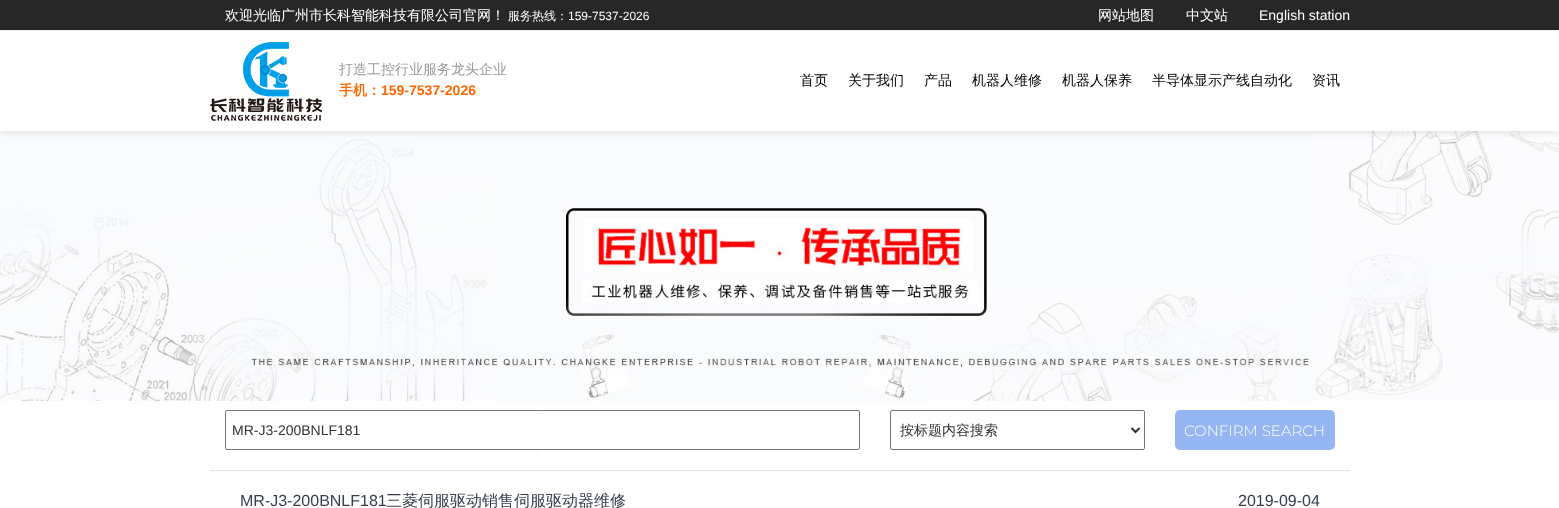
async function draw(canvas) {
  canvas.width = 1559
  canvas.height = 508
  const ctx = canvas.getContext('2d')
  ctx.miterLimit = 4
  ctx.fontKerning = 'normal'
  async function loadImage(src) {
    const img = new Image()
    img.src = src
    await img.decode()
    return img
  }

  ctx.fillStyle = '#fff'
  ctx.fillRect(0, 0, 1559, 508)
  ctx.drawImage(await loadImage('image1.png'), 0, 131, 1559, 270)
  ctx.drawImage(await loadImage('image2.png'), 15, 131, 1529, 270)
  ctx.save()
  ctx.beginPath()
  ctx.rect(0, 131, 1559, 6)
  ctx.clip()
  ctx.fillStyle = '#00000026'
  ctx.filter = 'blur(5px)'
  ctx.beginPath()
  ctx.rect(0, 31, 1559, 100)
  ctx.fill()
  ctx.filter = 'none'
  ctx.restore()
  ctx.fillStyle = '#272727'
  ctx.fillRect(0, 0, 1559, 30)
  ctx.fillStyle = '#ededed'
  ctx.fillRect(0, 30, 1559, 1)
  ctx.font = '500 14px WenQuanYi Zen Hei'
  ctx.fillStyle = '#fff'
  ctx.fillText('欢迎光临广州市长科智能科技有限公司官网！', 225, 20)
  ctx.font = '500 12px WenQuanYi Zen Hei'
  ctx.fillText('服务热线：', 508, 20)
  ctx.font = '12px Liberation Sans'
  ctx.fillText('159-7537-2026', 568, 20)
  ctx.font = '500 14px WenQuanYi Zen Hei'
  ctx.fillText('网站地图', 1098, 20)
  ctx.fillText('中文站', 1186, 20)
  ctx.font = '14px Liberation Sans'
  ctx.fillText('English station', 1259, 20)
  ctx.drawImage(await loadImage('image0.png'), 210, 42, 112, 79)
  ctx.font = '500 14px WenQuanYi Zen Hei'
  ctx.fillStyle = '#999'
  ctx.fillText('打造工控行业服务龙头企业', 339, 74)
  ctx.font = 'bold 14px WenQuanYi Zen Hei'
  ctx.fillStyle = '#f60'
  ctx.fillText('手机：', 339, 95)
  ctx.font = 'bold 14px Liberation Sans'
  ctx.fillText('159-7537-2026', 381, 95)
  ctx.font = '500 14px WenQuanYi Zen Hei'
  ctx.fillStyle = '#000'
  ctx.fillText('首页', 800, 85)
  ctx.fillText('关于我们', 848, 85)
  ctx.fillText('产品', 924, 85)
  ctx.fillText('机器人维修', 972, 85)
  ctx.fillText('机器人保养', 1062, 85)
  ctx.fillText('半导体显示产线自动化', 1152, 85)
  ctx.fillText('资讯', 1312, 85)
  ctx.fillStyle = '#e6e6e6'
  ctx.fillRect(210, 470, 1140, 1)
  ctx.beginPath()
  ctx.roundRect(225.5, 410.5, 634, 39, 1.5)
  ctx.strokeStyle = '#767676'
  ctx.stroke()
  ctx.font = '14px Liberation Sans'
  ctx.fillStyle = '#333'
  ctx.fillText('MR-J3-200BNLF181', 232, 435)
  ctx.beginPath()
  ctx.roundRect(890.5, 410.5, 254, 39, 1.5)
  ctx.stroke()
  ctx.beginPath()
  ctx.moveTo(1131.5, 428)
  ctx.lineTo(1135.5, 432)
  ctx.lineTo(1139.5, 428)
  ctx.strokeStyle = '#333'
  ctx.lineWidth = 2
  ctx.stroke()
  ctx.font = '500 14px WenQuanYi Zen Hei'
  ctx.fillText('按标题内容搜索', 900, 435)
  ctx.fillStyle = '#95b6f2'
  ctx.beginPath()
  ctx.roundRect(1175, 410, 160, 40, 5)
  ctx.fill()
  ctx.font = '300 15px Montserrat'
  ctx.fillStyle = '#fff'
  ctx.fillText('CONFIRM SEARCH', 1184, 436)
  ctx.font = '16px Liberation Sans'
  ctx.fillStyle = '#363f4d'
  ctx.fillText('MR-J3-200BNLF181', 240, 506)
  ctx.font = '500 16px WenQuanYi Zen Hei'
  ctx.fillText('三菱伺服驱动销售伺服驱动器维修', 386, 506)
  ctx.font = '16px Liberation Sans'
  ctx.fillText('2019-09-04', 1238, 506)
}

draw(document.querySelector('canvas'))
